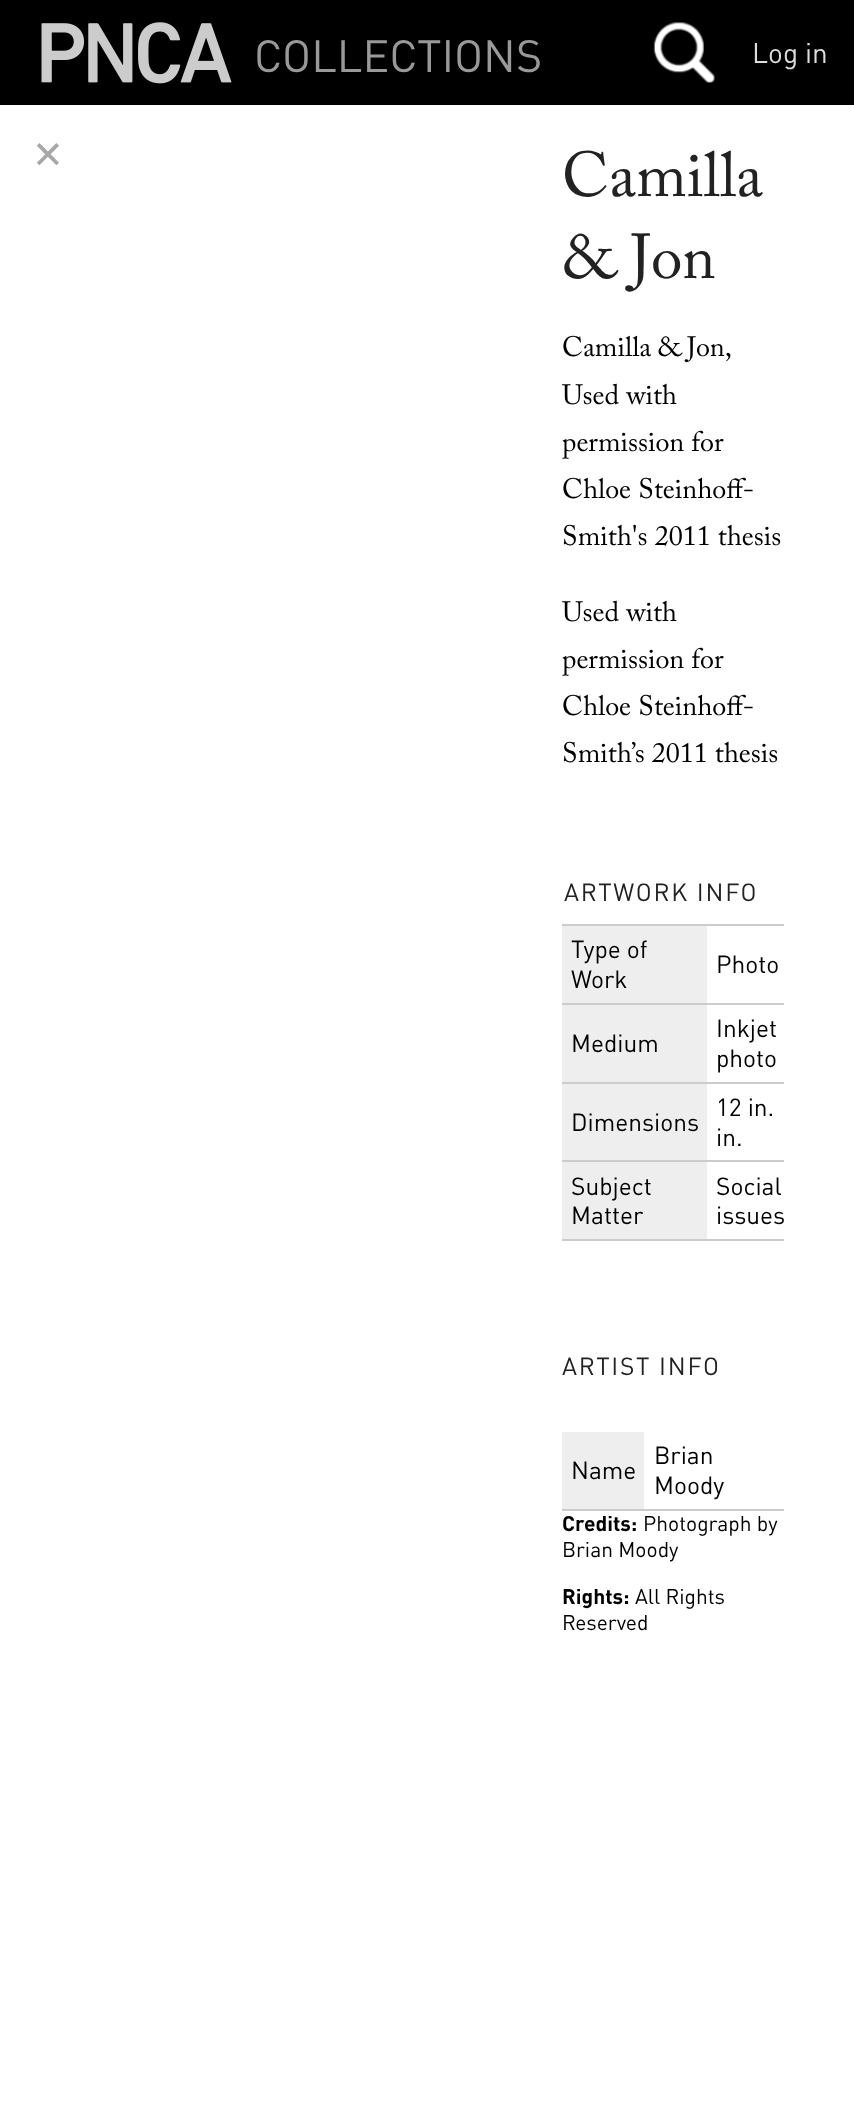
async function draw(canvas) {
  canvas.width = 854
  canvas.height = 2104
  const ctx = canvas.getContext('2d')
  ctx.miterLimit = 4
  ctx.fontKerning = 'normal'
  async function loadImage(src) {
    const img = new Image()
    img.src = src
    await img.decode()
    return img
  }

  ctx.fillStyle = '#fff'
  ctx.fillRect(0, 0, 854, 2104)
  ctx.fillStyle = '#000'
  ctx.fillRect(0, 0, 854, 105)
  ctx.drawImage(await loadImage('image0.png'), 41, 22, 191, 62)
  ctx.font = '44.75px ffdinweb'
  ctx.fillStyle = '#999'
  ctx.fillText('COLLECTIONS', 254, 72)
  ctx.drawImage(await loadImage('image1.png'), 653, 22, 62, 61)
  ctx.font = '28px ffdinweb'
  ctx.fillStyle = '#ddd'
  ctx.fillText('Log in', 752, 63)
  ctx.font = '38px DejaVu Sans'
  ctx.fillStyle = '#a7a7a7'
  ctx.fillText('✕', 32, 168)
  ctx.font = '63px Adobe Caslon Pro'
  ctx.fillStyle = '#222'
  ctx.fillText('Camilla', 562, 196)
  ctx.fillText('& Jon', 562, 278)
  ctx.wordSpacing = '-1px'
  ctx.font = '28px Adobe Caslon Pro'
  ctx.fillStyle = '#000'
  ctx.fillText('Camilla & Jon,', 562, 356)
  ctx.wordSpacing = '0px'
  ctx.fillText('Used with', 562, 404)
  ctx.fillText('permission for', 562, 451)
  ctx.fillText('Chloe Steinhoff-', 562, 498)
  ctx.fillText('Smith\'s 2011 thesis', 562, 545)
  ctx.fillText('Used with', 562, 621)
  ctx.fillText('permission for', 562, 668)
  ctx.fillText('Chloe Steinhoff-', 562, 715)
  ctx.fillText('Smith’s 2011 thesis', 562, 762)
  ctx.fillStyle = '#ccc'
  ctx.fillRect(562, 924, 222, 2)
  ctx.letterSpacing = '1.75px'
  ctx.font = '24.5px ffdinweb'
  ctx.fillStyle = '#222'
  ctx.fillText('ARTWORK INFO', 564, 901)
  ctx.fillStyle = '#eee'
  ctx.fillRect(562, 926, 145, 77)
  ctx.letterSpacing = '0px'
  ctx.fillStyle = '#000'
  ctx.fillText('Type of', 571, 958)
  ctx.fillText('Work', 571, 988)
  ctx.fillStyle = '#ccc'
  ctx.fillRect(562, 1003, 222, 2)
  ctx.fillStyle = '#000'
  ctx.fillText('Photo', 716, 973)
  ctx.fillStyle = '#eee'
  ctx.fillRect(562, 1005, 145, 77)
  ctx.fillStyle = '#000'
  ctx.fillText('Medium', 571, 1052)
  ctx.fillStyle = '#ccc'
  ctx.fillRect(562, 1082, 222, 2)
  ctx.fillStyle = '#000'
  ctx.fillText('Inkjet', 716, 1037)
  ctx.fillText('photo', 716, 1067)
  ctx.fillStyle = '#eee'
  ctx.fillRect(562, 1084, 145, 76)
  ctx.fillStyle = '#000'
  ctx.fillText('Dimensions', 571, 1131)
  ctx.fillStyle = '#ccc'
  ctx.fillRect(562, 1160, 222, 2)
  ctx.fillStyle = '#000'
  ctx.fillText('12 in.', 716, 1116)
  ctx.fillText('in.', 716, 1146)
  ctx.fillStyle = '#eee'
  ctx.fillRect(562, 1162, 145, 77)
  ctx.fillStyle = '#000'
  ctx.fillText('Subject', 571, 1195)
  ctx.fillText('Matter', 571, 1224)
  ctx.fillStyle = '#ccc'
  ctx.fillRect(562, 1239, 222, 2)
  ctx.fillStyle = '#000'
  ctx.fillText('Social', 716, 1195)
  ctx.save()
  ctx.beginPath()
  ctx.rect(562, 130, 222, 1527)
  ctx.clip()
  ctx.fillText('issues', 716, 1224)
  ctx.restore()
  ctx.letterSpacing = '1.75px'
  ctx.fillStyle = '#222'
  ctx.fillText('ARTIST INFO', 562, 1375)
  ctx.fillStyle = '#eee'
  ctx.fillRect(562, 1432, 82, 77)
  ctx.letterSpacing = '0px'
  ctx.fillStyle = '#000'
  ctx.fillText('Name', 571, 1479)
  ctx.fillStyle = '#ccc'
  ctx.fillRect(562, 1509, 222, 2)
  ctx.fillStyle = '#000'
  ctx.fillText('Brian', 654, 1464)
  ctx.fillText('Moody', 654, 1494)
  ctx.font = 'bold 21px ffdinweb'
  ctx.fillText('Credits:', 562, 1531)
  ctx.font = '21px ffdinweb'
  ctx.fillText('Photograph by', 643, 1531)
  ctx.fillText('Brian Moody', 562, 1557)
  ctx.font = 'bold 21px ffdinweb'
  ctx.fillText('Rights:', 562, 1604)
  ctx.font = '21px ffdinweb'
  ctx.fillText('All Rights', 635, 1604)
  ctx.fillText('Reserved', 562, 1630)
}

draw(document.querySelector('canvas'))
